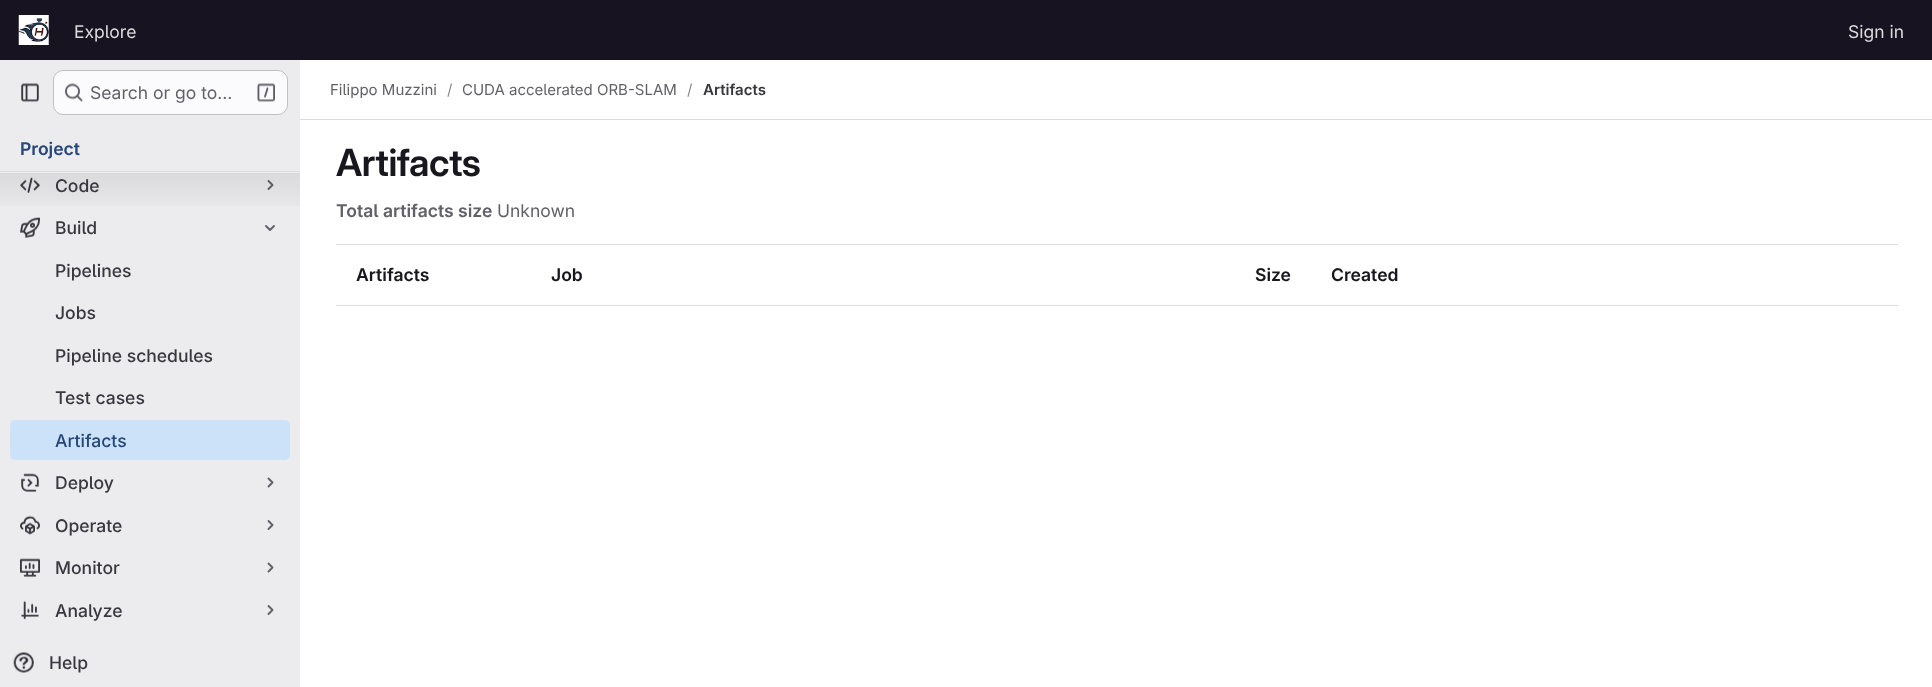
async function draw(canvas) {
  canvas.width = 1932
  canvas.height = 687
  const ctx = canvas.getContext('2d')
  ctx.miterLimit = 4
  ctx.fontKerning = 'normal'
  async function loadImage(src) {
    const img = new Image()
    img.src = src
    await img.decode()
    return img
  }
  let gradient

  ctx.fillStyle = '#fff'
  ctx.fillRect(0, 0, 1932, 687)
  ctx.fillStyle = '#171321'
  ctx.fillRect(0, 0, 1932, 60)
  ctx.drawImage(await loadImage('image0.png'), 18, 15, 31, 30)
  ctx.font = '17.5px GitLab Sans'
  ctx.fillStyle = '#dcdcde'
  ctx.fillText('Explore', 74, 38)
  ctx.fillText('Sign in', 1848, 38)
  ctx.fillStyle = '#ececef'
  ctx.fillRect(0, 60, 300, 627)
  ctx.drawImage(await loadImage('image1.png'), 21, 83, 18, 19)
  ctx.fillStyle = '#fbfafd'
  ctx.beginPath()
  ctx.roundRect(53, 70, 235, 45, 10)
  ctx.fill()
  ctx.beginPath()
  ctx.roundRect(53.5, 70.5, 234, 44, 9.5)
  ctx.strokeStyle = '#0505063d'
  ctx.stroke()
  ctx.drawImage(await loadImage('image2.png'), 65, 83, 18, 19)
  ctx.fillStyle = '#626168'
  ctx.fillText('Search or go to…', 90, 99)
  ctx.drawImage(await loadImage('image3.png'), 257, 83, 18, 19)
  ctx.font = '600 17.5px "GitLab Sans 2"'
  ctx.fillStyle = '#284779'
  ctx.fillText('Project', 20, 155)
  ctx.fillStyle = '#dcdcde'
  ctx.fillRect(0, 171, 300, 1)
  ctx.drawImage(await loadImage('image4.png'), 20, 177, 20, 16)
  ctx.beginPath()
  ctx.moveTo(268.5, 181)
  ctx.lineTo(272.5, 185)
  ctx.lineTo(268.5, 189)
  ctx.strokeStyle = '#626168'
  ctx.lineWidth = 1.9
  ctx.lineCap = 'round'
  ctx.lineJoin = 'round'
  ctx.stroke()
  gradient = ctx.createLinearGradient(150, 173, 150, 218)
  gradient.addColorStop(0, '#05050614')
  gradient.addColorStop(1, '#05050600')
  ctx.fillStyle = gradient
  ctx.fillRect(0, 173, 300, 33)
  ctx.font = '500 17.5px GitLab Sans'
  ctx.fillStyle = '#3a383f'
  ctx.fillText('Code', 55, 192)
  ctx.drawImage(await loadImage('image5.png'), 20, 217, 20, 21)
  ctx.fillText('Build', 55, 234)
  ctx.beginPath()
  ctx.moveTo(274, 226)
  ctx.lineTo(270, 230)
  ctx.lineTo(266, 226)
  ctx.stroke()
  ctx.fillText('Pipelines', 55, 277)
  ctx.fillText('Jobs', 55, 319)
  ctx.fillText('Pipeline schedules', 55, 362)
  ctx.fillText('Test cases', 55, 404)
  ctx.fillStyle = '#cbe2f9'
  ctx.beginPath()
  ctx.roundRect(10, 420, 280, 40, 5)
  ctx.fill()
  ctx.fillStyle = '#284779'
  ctx.fillText('Artifacts', 55, 447)
  ctx.drawImage(await loadImage('image6.png'), 21, 473, 18, 19)
  ctx.fillStyle = '#3a383f'
  ctx.fillText('Deploy', 55, 489)
  ctx.beginPath()
  ctx.moveTo(268.5, 478.5)
  ctx.lineTo(272.5, 482.5)
  ctx.lineTo(268.5, 486.5)
  ctx.stroke()
  ctx.drawImage(await loadImage('image7.png'), 20, 515, 20, 20)
  ctx.fillText('Operate', 55, 532)
  ctx.beginPath()
  ctx.moveTo(268.5, 521)
  ctx.lineTo(272.5, 525)
  ctx.lineTo(268.5, 529)
  ctx.stroke()
  ctx.drawImage(await loadImage('image8.png'), 20, 558, 20, 19)
  ctx.fillText('Monitor', 55, 574)
  ctx.beginPath()
  ctx.moveTo(268.5, 563.5)
  ctx.lineTo(272.5, 567.5)
  ctx.lineTo(268.5, 571.5)
  ctx.stroke()
  ctx.drawImage(await loadImage('image9.png'), 21, 600, 18, 20)
  ctx.fillText('Analyze', 55, 617)
  ctx.beginPath()
  ctx.moveTo(268.5, 606)
  ctx.lineTo(272.5, 610)
  ctx.lineTo(268.5, 614)
  ctx.stroke()
  ctx.drawImage(await loadImage('image10.png'), 13, 652, 21, 21)
  ctx.fillText('Help', 49, 669)
  ctx.fillStyle = '#dcdcde'
  ctx.fillRect(300, 119, 1632, 1)
  ctx.font = '15px GitLab Sans'
  ctx.fillStyle = '#626168'
  ctx.fillText('Filippo Muzzini', 330, 95)
  ctx.fillStyle = '#89888d'
  ctx.fillText('/', 447, 95)
  ctx.fillStyle = '#626168'
  ctx.fillText('CUDA accelerated ORB-SLAM', 462, 95)
  ctx.fillStyle = '#89888d'
  ctx.fillText('/', 687, 95)
  ctx.font = '600 15px "GitLab Sans 2"'
  ctx.fillStyle = '#3a383f'
  ctx.fillText('Artifacts', 703, 95)
  ctx.letterSpacing = '-0.4px'
  ctx.font = '600 37.5px GitLab Sans'
  ctx.fillStyle = '#18171d'
  ctx.fillText('Artifacts', 336, 176)
  ctx.letterSpacing = '0px'
  ctx.font = '600 17.5px "GitLab Sans 2"'
  ctx.fillStyle = '#626168'
  ctx.fillText('Total artifacts size', 336, 217)
  ctx.font = '17.5px GitLab Sans'
  ctx.fillText('Unknown', 497, 217)
  ctx.fillStyle = '#dcdcde'
  ctx.fillRect(336, 244, 1562, 1)
  ctx.fillRect(336, 305, 1562, 1)
  ctx.font = '600 17.5px "GitLab Sans 2"'
  ctx.fillStyle = '#18171d'
  ctx.fillText('Artifacts', 356, 281)
  ctx.fillText('Job', 551, 281)
  ctx.fillText('Size', 1255, 281)
  ctx.fillText('Created', 1331, 281)
}

draw(document.querySelector('canvas'))
